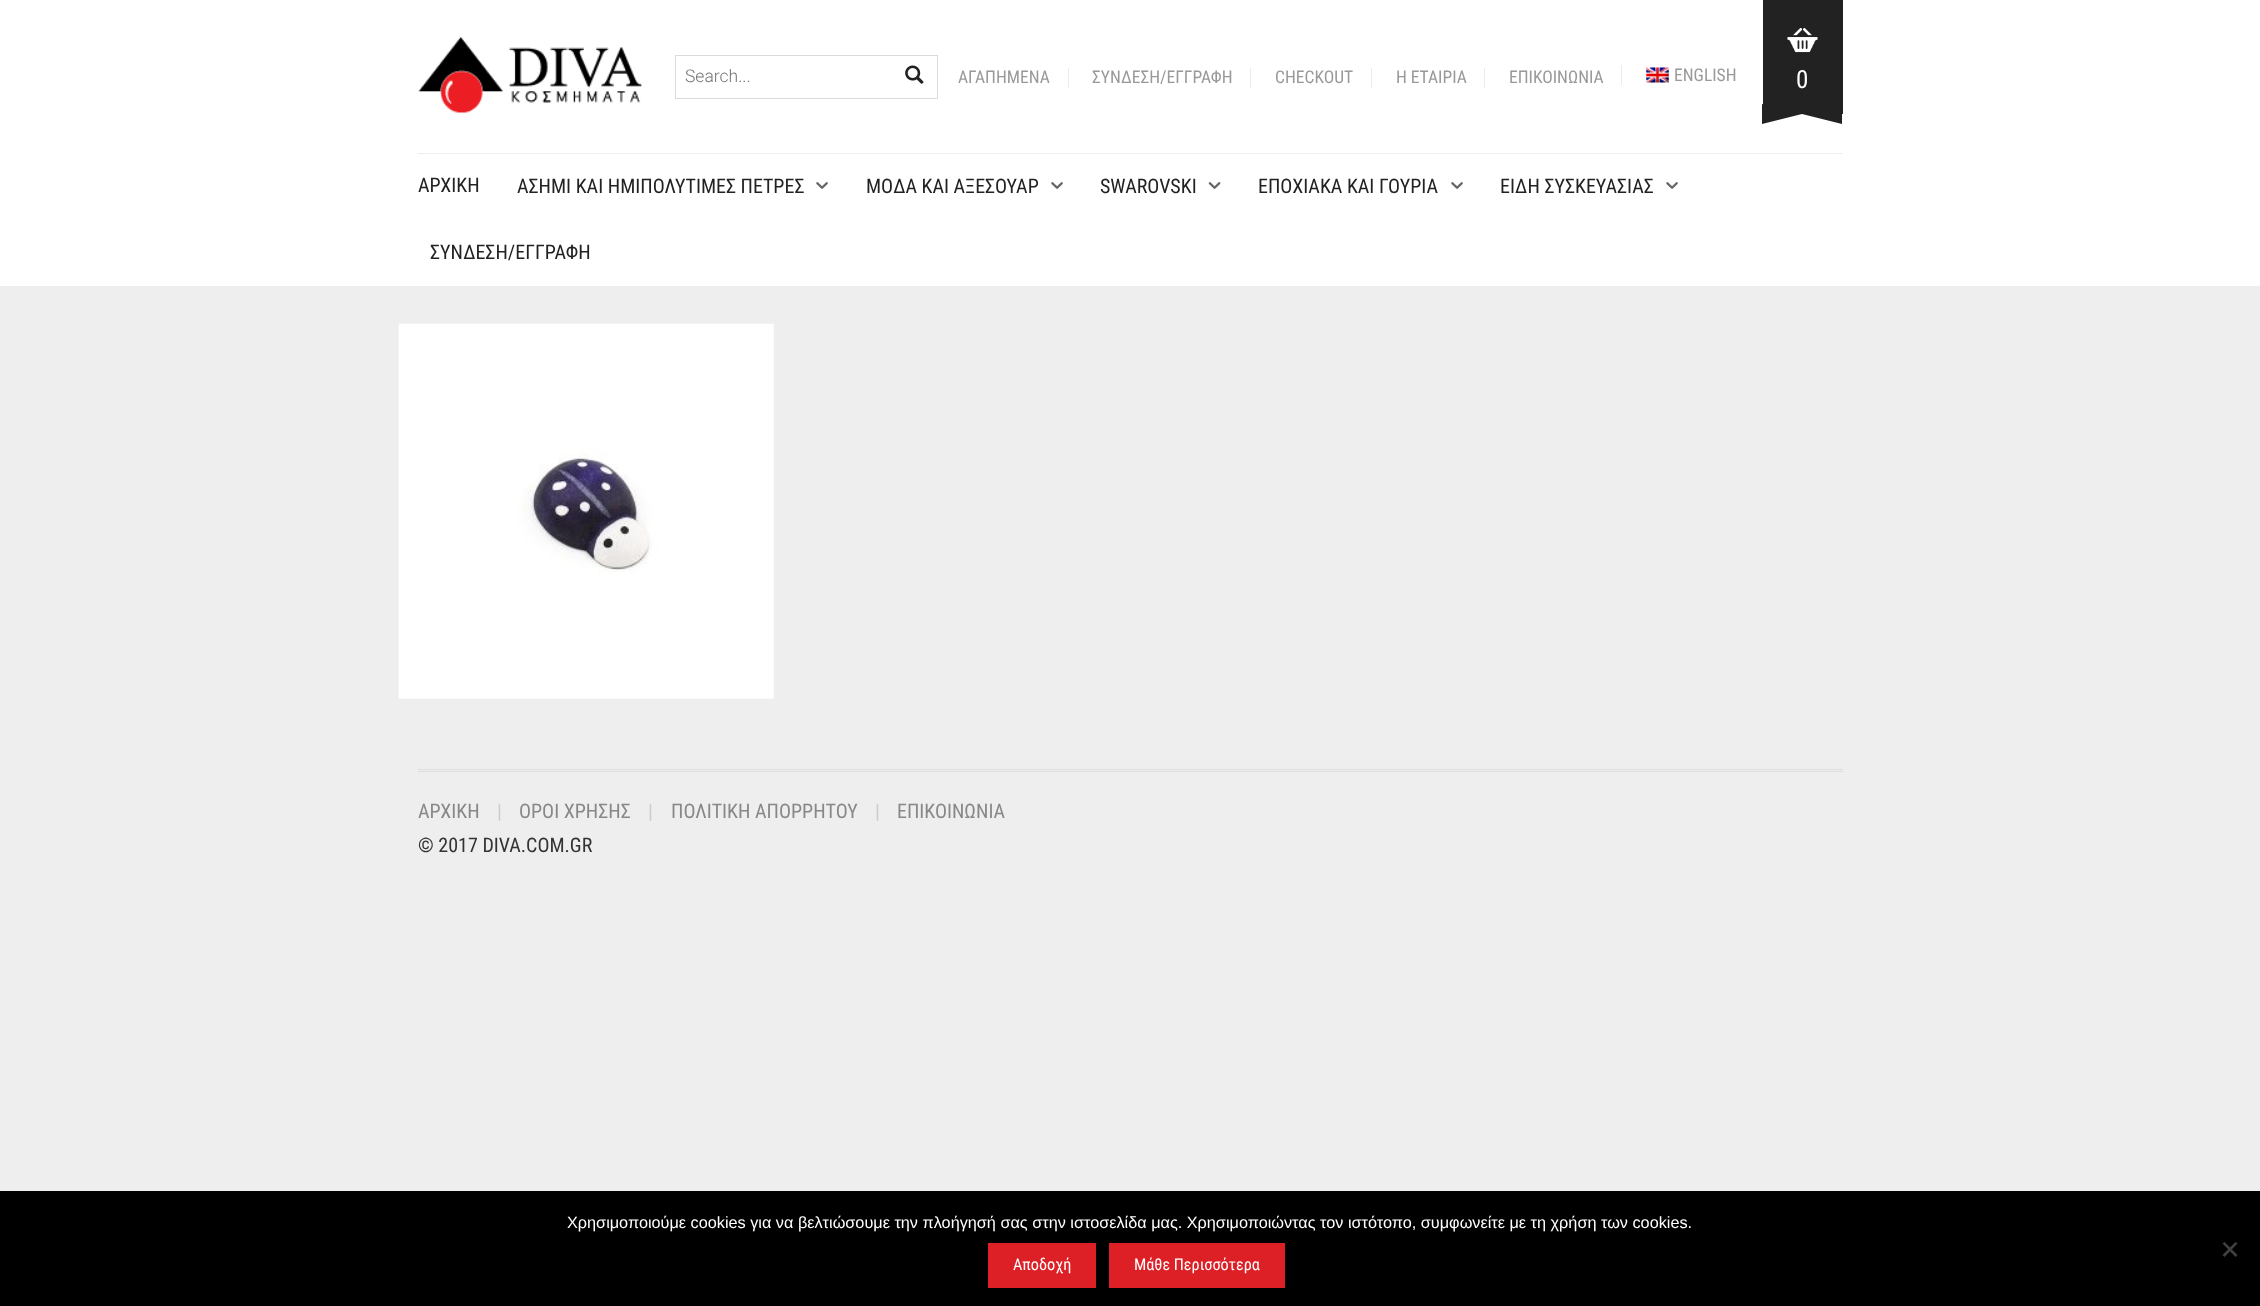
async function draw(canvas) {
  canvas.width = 2260
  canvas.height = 1306
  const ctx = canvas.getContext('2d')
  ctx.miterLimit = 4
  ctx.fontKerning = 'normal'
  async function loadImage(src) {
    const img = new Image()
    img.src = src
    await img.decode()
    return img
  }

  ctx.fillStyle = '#eee'
  ctx.fillRect(0, 0, 2260, 1306)
  ctx.fillStyle = '#fff'
  ctx.fillRect(0, 0, 2260, 286)
  ctx.drawImage(await loadImage('image0.png'), 418, 37, 224, 76)
  ctx.strokeStyle = '#dbdbdb'
  ctx.strokeRect(675.5, 55.5, 262, 43)
  ctx.font = '300 17.5px Roboto'
  ctx.fillStyle = '#757575'
  ctx.fillText('Search...', 685, 82)
  ctx.drawImage(await loadImage('image1.png'), 905, 65, 19, 19)
  ctx.font = '17.5px Roboto Condensed'
  ctx.fillStyle = '#999'
  ctx.fillText('ΑΓΑΠΗΜΕΝΑ', 958, 83)
  ctx.fillStyle = '#ebebeb'
  ctx.fillRect(1068, 68, 1, 20)
  ctx.fillStyle = '#999'
  ctx.fillText('ΣΥΝΔΕΣΗ/ΕΓΓΡΑΦΗ', 1092, 83)
  ctx.fillStyle = '#ebebeb'
  ctx.fillRect(1250, 68, 1, 20)
  ctx.fillStyle = '#999'
  ctx.fillText('CHECKOUT', 1275, 83)
  ctx.fillStyle = '#ebebeb'
  ctx.fillRect(1371, 68, 1, 20)
  ctx.fillStyle = '#999'
  ctx.fillText('Η ΕΤΑΙΡΙΑ', 1396, 83)
  ctx.fillStyle = '#ebebeb'
  ctx.fillRect(1484, 68, 1, 20)
  ctx.fillStyle = '#999'
  ctx.fillText('ΕΠΙΚΟΙΝΩΝΙΑ', 1509, 83)
  ctx.fillStyle = '#ebebeb'
  ctx.fillRect(1621, 65, 1, 20)
  ctx.drawImage(await loadImage('image2.png'), 1646, 67, 23, 16)
  ctx.fillStyle = '#999'
  ctx.fillText('ENGLISH', 1674, 81)
  ctx.fillStyle = '#222'
  ctx.fillRect(1763, 0, 80, 114)
  ctx.drawImage(await loadImage('image3.png'), 1787, 27, 31, 26)
  ctx.font = '25px Roboto Condensed'
  ctx.fillStyle = '#fff'
  ctx.fillText('0', 1796, 88)
  ctx.fillStyle = '#222'
  ctx.beginPath()
  ctx.moveTo(1842, 104)
  ctx.lineTo(1842, 124)
  ctx.lineTo(1802, 114)
  ctx.closePath()
  ctx.fill()
  ctx.beginPath()
  ctx.moveTo(1762, 124)
  ctx.lineTo(1762, 104)
  ctx.lineTo(1802, 114)
  ctx.closePath()
  ctx.fill()
  ctx.fillStyle = '#eee'
  ctx.fillRect(418, 153, 1425, 1)
  ctx.font = '20px Roboto Condensed'
  ctx.fillStyle = '#222'
  ctx.fillText('ΑΡΧΙΚΗ', 418, 192)
  ctx.fillText('ΑΣΗΜΙ ΚΑΙ ΗΜΙΠΟΛΥΤΙΜΕΣ ΠΕΤΡΕΣ', 517, 193)
  ctx.drawImage(await loadImage('image4.png'), 816, 182, 12, 7)
  ctx.fillText('MOΔA KAI ΑΞΕΣΟΥΑΡ', 866, 193)
  ctx.drawImage(await loadImage('image4.png'), 1051, 182, 12, 7)
  ctx.fillText('SWAROVSKI', 1100, 193)
  ctx.drawImage(await loadImage('image5.png'), 1208, 182, 13, 7)
  ctx.fillText('EΠOXIAKA KAI ΓΟΥΡΙΑ', 1258, 193)
  ctx.drawImage(await loadImage('image4.png'), 1451, 182, 12, 7)
  ctx.fillText('ΕΙΔΗ ΣΥΣΚΕΥΑΣΙΑΣ', 1500, 193)
  ctx.drawImage(await loadImage('image4.png'), 1666, 182, 12, 7)
  ctx.fillText('ΣΥΝΔΕΣΗ/ΕΓΓΡΑΦΗ', 430, 259)
  ctx.drawImage(await loadImage('image6.png'), 398, 323, 376, 376)
  ctx.fillStyle = '#ddd'
  ctx.fillRect(418, 769, 1425, 1)
  ctx.fillRect(418, 771, 1425, 1)
  ctx.fillStyle = '#888'
  ctx.fillText('ΑΡΧΙΚΗ', 418, 818)
  ctx.font = '20px Roboto'
  ctx.fillStyle = '#ccc'
  ctx.fillText('|', 497, 818)
  ctx.font = '20px Roboto Condensed'
  ctx.fillStyle = '#888'
  ctx.fillText('ΟΡΟΙ ΧΡΗΣΗΣ', 519, 818)
  ctx.font = '20px Roboto'
  ctx.fillStyle = '#ccc'
  ctx.fillText('|', 648, 818)
  ctx.font = '20px Roboto Condensed'
  ctx.fillStyle = '#888'
  ctx.fillText('ΠΟΛΙΤΙΚΗ ΑΠΟΡΡΗΤΟΥ', 671, 818)
  ctx.font = '20px Roboto'
  ctx.fillStyle = '#ccc'
  ctx.fillText('|', 875, 818)
  ctx.font = '20px Roboto Condensed'
  ctx.fillStyle = '#888'
  ctx.fillText('ΕΠΙΚΟΙΝΩΝΙΑ', 897, 818)
  ctx.fillStyle = '#333'
  ctx.fillText('© 2017 DIVA.COM.GR', 418, 852)
  ctx.fillStyle = '#000'
  ctx.fillRect(0, 1191, 2260, 115)
  ctx.font = '16.25px Liberation Sans'
  ctx.fillStyle = '#fff'
  ctx.fillText('Χρησιμοποιούμε cookies για να βελτιώσουμε την πλοήγησή σας στην ιστοσελίδα μας. Χρησιμοποιώντας τον ιστότοπο, συμφωνείτε με τη χρήση των cookies.', 567, 1228)
  ctx.fillStyle = '#404040'
  ctx.beginPath()
  ctx.moveTo(2235.5, 1242)
  ctx.lineTo(2237.5, 1243.5)
  ctx.lineTo(2224.5, 1257)
  ctx.lineTo(2222.5, 1255)
  ctx.closePath()
  ctx.fill()
  ctx.beginPath()
  ctx.moveTo(2222.5, 1243.5)
  ctx.lineTo(2224.5, 1242)
  ctx.lineTo(2237.5, 1255)
  ctx.lineTo(2235.5, 1257)
  ctx.closePath()
  ctx.fill()
  ctx.fillStyle = '#dd1f26'
  ctx.fillRect(988, 1243, 108, 45)
  ctx.font = '16.25px Roboto Condensed'
  ctx.fillStyle = '#fff'
  ctx.fillText('Αποδοχή', 1013, 1270)
  ctx.fillStyle = '#dd1f26'
  ctx.fillRect(1109, 1243, 176, 45)
  ctx.fillStyle = '#fff'
  ctx.fillText('Μάθε Περισσότερα', 1134, 1270)
}

draw(document.querySelector('canvas'))
